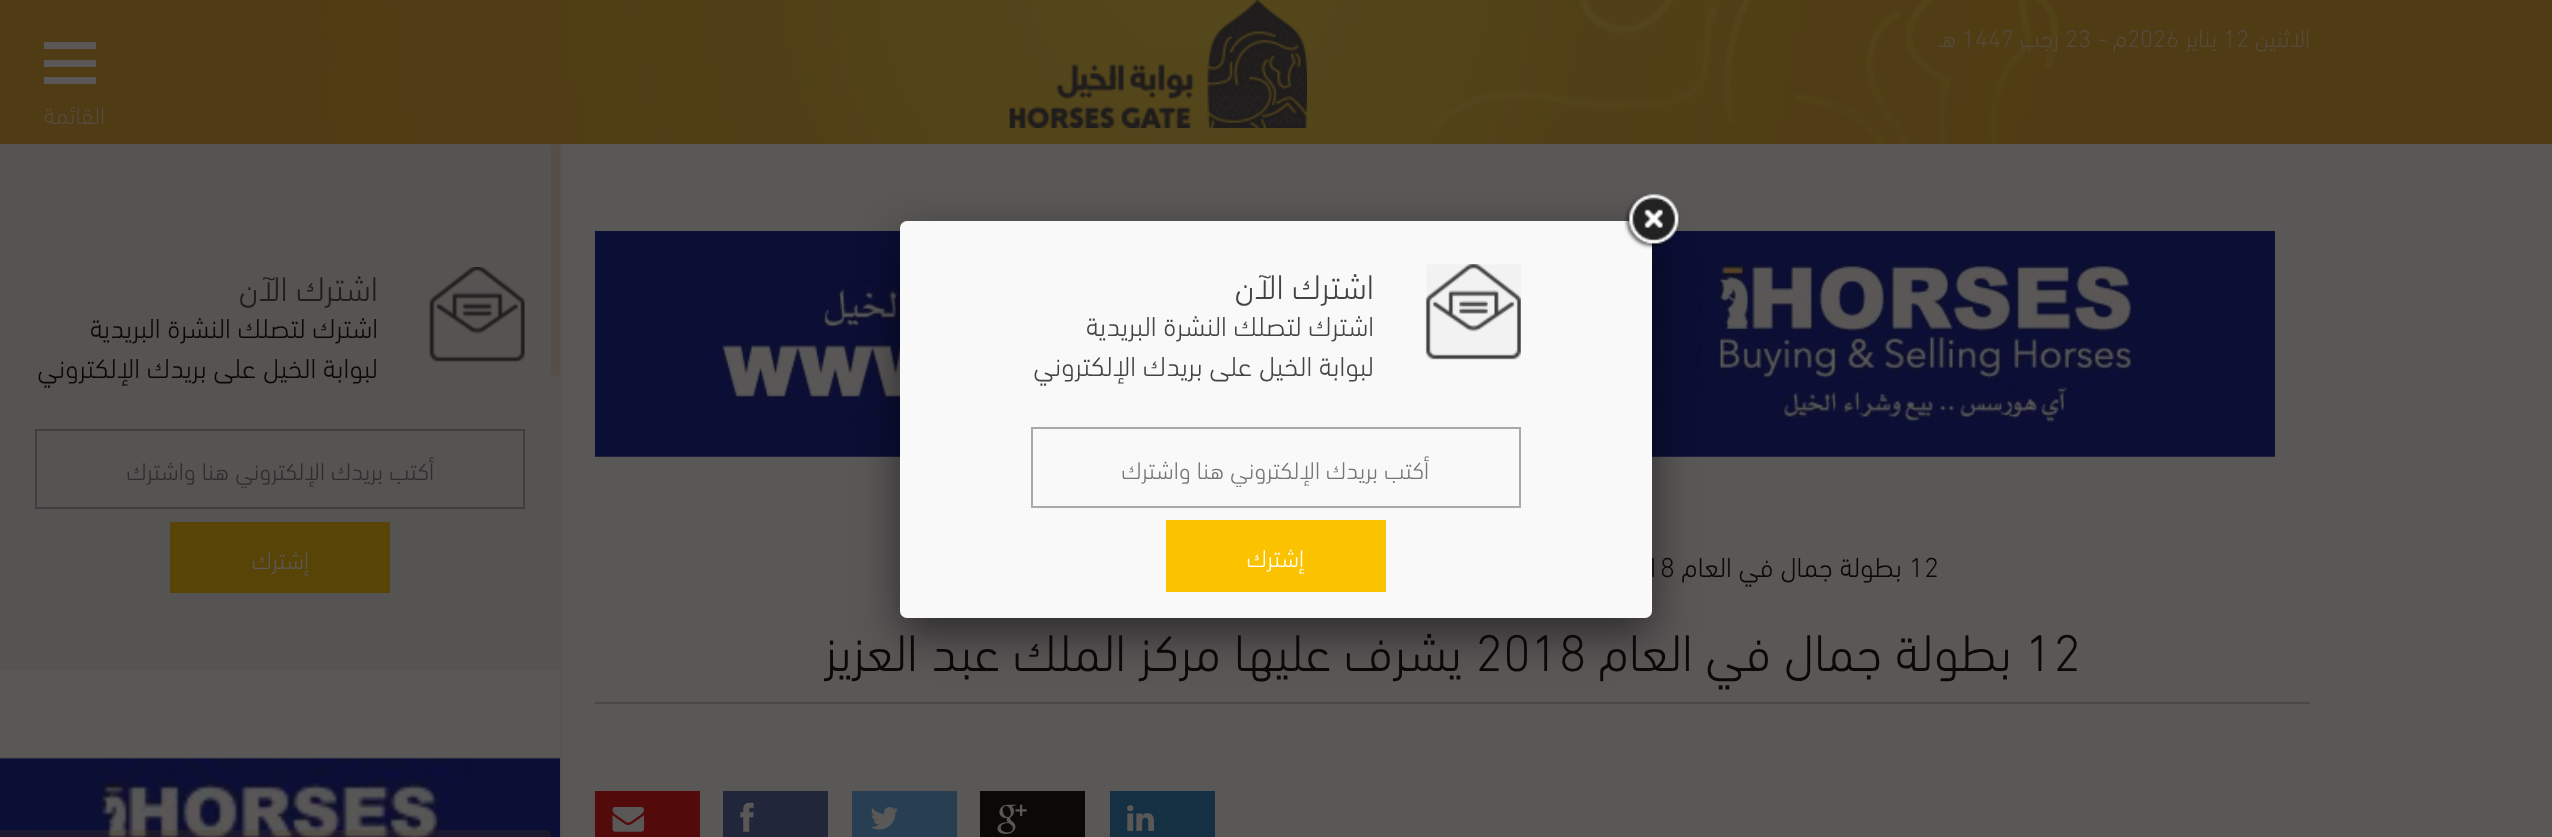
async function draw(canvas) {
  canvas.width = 2552
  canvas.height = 837
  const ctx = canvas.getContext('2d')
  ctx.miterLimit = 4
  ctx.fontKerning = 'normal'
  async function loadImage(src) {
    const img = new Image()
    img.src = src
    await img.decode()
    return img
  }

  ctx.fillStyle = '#5a5757'
  ctx.fillRect(0, 0, 2552, 837)
  ctx.drawImage(await loadImage('image0.png'), 0, 0, 2552, 144)
  ctx.direction = 'rtl'
  ctx.font = '300 24.5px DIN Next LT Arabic'
  ctx.fillStyle = '#554b3c'
  ctx.fillText('الاثنين', 2310, 47)
  ctx.direction = 'ltr'
  ctx.fillText('12', 2223, 47)
  ctx.direction = 'rtl'
  ctx.fillText('يناير', 2217, 47)
  ctx.direction = 'ltr'
  ctx.fillText('2026', 2127, 47)
  ctx.direction = 'rtl'
  ctx.fillText('م -', 2127, 47)
  ctx.direction = 'ltr'
  ctx.fillText('23', 2065, 47)
  ctx.direction = 'rtl'
  ctx.fillText('رجب', 2059, 47)
  ctx.direction = 'ltr'
  ctx.fillText('1447', 1962, 47)
  ctx.direction = 'rtl'
  ctx.fillText('هـ', 1956, 47)
  ctx.drawImage(await loadImage('image1.png'), 1009, 0, 298, 128)
  ctx.fillStyle = '#5a5757'
  ctx.fillRect(44, 42, 52, 7)
  ctx.fillRect(44, 60, 52, 7)
  ctx.fillRect(44, 77, 52, 7)
  ctx.fillStyle = '#554b3c'
  ctx.fillText('القائمة', 105, 124)
  ctx.drawImage(await loadImage('image6.png'), 595, 231, 1680, 226)
  ctx.fillStyle = '#00000080'
  ctx.filter = 'blur(22px)'
  ctx.beginPath()
  ctx.roundRect(900, 238, 752, 397, 7)
  ctx.fill()
  ctx.filter = 'none'
  ctx.direction = 'ltr'
  ctx.font = '300 28px DIN Next LT Arabic'
  ctx.fillStyle = '#0b0808'
  ctx.fillText('18', 1645, 577)
  ctx.fillStyle = '#f9f9f9'
  ctx.beginPath()
  ctx.roundRect(900, 221, 752, 397, 7)
  ctx.fill()
  ctx.drawImage(await loadImage('image2.png'), 1624, 193, 56, 56)
  ctx.drawImage(await loadImage('image3.png'), 1425, 264, 96, 96)
  ctx.direction = 'rtl'
  ctx.font = '300 35px DIN Next LT Arabic'
  ctx.fillStyle = '#444'
  ctx.fillText('اشترك الآن', 1374, 299)
  ctx.font = '300 28px DIN Next LT Arabic'
  ctx.fillText('اشترك لتصلك النشرة البريدية', 1374, 336)
  ctx.fillText('لبوابة الخيل على بريدك الإلكتروني', 1374, 376)
  ctx.strokeStyle = '#a9a9a9'
  ctx.lineWidth = 2
  ctx.strokeRect(1032, 428, 488, 79)
  ctx.save()
  ctx.beginPath()
  ctx.rect(1041, 450, 469, 37)
  ctx.clip()
  ctx.font = '300 24.5px DIN Next LT Arabic'
  ctx.fillStyle = '#757575'
  ctx.fillText('أكتب بريدك الإلكتروني هنا واشترك', 1429, 479)
  ctx.restore()
  ctx.fillStyle = '#fbc200'
  ctx.fillRect(1166, 520, 220, 72)
  ctx.font = '300 24.5px DIN Next LT Arabic'
  ctx.fillStyle = '#fff'
  ctx.fillText('إشترك', 1304, 567)
  ctx.fillStyle = '#565353'
  ctx.fillRect(560, 144, 2, 693)
  ctx.fillRect(0, 144, 560, 526)
  ctx.fillStyle = '#554e46'
  ctx.beginPath()
  ctx.roundRect(551, 144, 9, 232, 4.5)
  ctx.fill()
  ctx.drawImage(await loadImage('image4.png'), 429, 267, 96, 95)
  ctx.font = '300 35px DIN Next LT Arabic'
  ctx.fillStyle = '#201d1d'
  ctx.fillText('اشترك الآن', 378, 301)
  ctx.font = '300 28px DIN Next LT Arabic'
  ctx.fillStyle = '#0b0808'
  ctx.fillText('اشترك لتصلك النشرة البريدية', 378, 338)
  ctx.fillText('لبوابة الخيل على بريدك الإلكتروني', 378, 378)
  ctx.strokeStyle = '#3f3d3d'
  ctx.strokeRect(36, 430, 488, 78)
  ctx.save()
  ctx.beginPath()
  ctx.rect(46, 452, 469, 36)
  ctx.clip()
  ctx.font = '300 24.5px DIN Next LT Arabic'
  ctx.fillStyle = '#2f2d2d'
  ctx.fillText('أكتب بريدك الإلكتروني هنا واشترك', 434, 480)
  ctx.restore()
  ctx.fillStyle = '#594408'
  ctx.fillRect(170, 522, 220, 71)
  ctx.font = '300 24.5px DIN Next LT Arabic'
  ctx.fillStyle = '#5a5757'
  ctx.fillText('إشترك', 309, 569)
  ctx.drawImage(await loadImage('image5.png'), 0, 757, 560, 80)
  ctx.fillStyle = '#503d1a3b'
  ctx.beginPath()
  ctx.roundRect(-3, 830, 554, 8, 4)
  ctx.fill()
  ctx.direction = 'ltr'
  ctx.font = '300 28px DIN Next LT Arabic'
  ctx.fillStyle = '#0b0808'
  ctx.fillText('12', 1909, 577)
  ctx.direction = 'rtl'
  ctx.fillText('بطولة جمال في العام', 1902, 577)
  ctx.fillStyle = '#4b4848'
  ctx.fillRect(595, 702, 1715, 2)
  ctx.direction = 'ltr'
  ctx.font = '300 52.5px DIN Next LT Arabic'
  ctx.fillStyle = '#0b0808'
  ctx.fillText('12', 2025, 671)
  ctx.direction = 'rtl'
  ctx.fillText('بطولة جمال في العام', 2012, 671)
  ctx.direction = 'ltr'
  ctx.fillText('2018', 1475, 671)
  ctx.direction = 'rtl'
  ctx.fillText('يشرف عليها مركز الملك عبد العزيز', 1462, 671)
  ctx.fillStyle = '#163043'
  ctx.fillRect(1110, 791, 105, 46)
  ctx.drawImage(await loadImage('image7.png'), 1127, 805, 27, 26)
  ctx.fillStyle = '#0b0808'
  ctx.fillRect(980, 791, 105, 46)
  ctx.drawImage(await loadImage('image8.png'), 997, 804, 30, 30)
  ctx.fillStyle = '#283e53'
  ctx.fillRect(852, 791, 105, 46)
  ctx.drawImage(await loadImage('image9.png'), 870, 807, 28, 23)
  ctx.fillStyle = '#21263a'
  ctx.fillRect(723, 791, 105, 46)
  ctx.drawImage(await loadImage('image10.png'), 740, 802, 14, 30)
  ctx.fillStyle = '#530a0a'
  ctx.fillRect(595, 791, 105, 46)
  ctx.drawImage(await loadImage('image11.png'), 612, 807, 32, 25)
}

draw(document.querySelector('canvas'))
